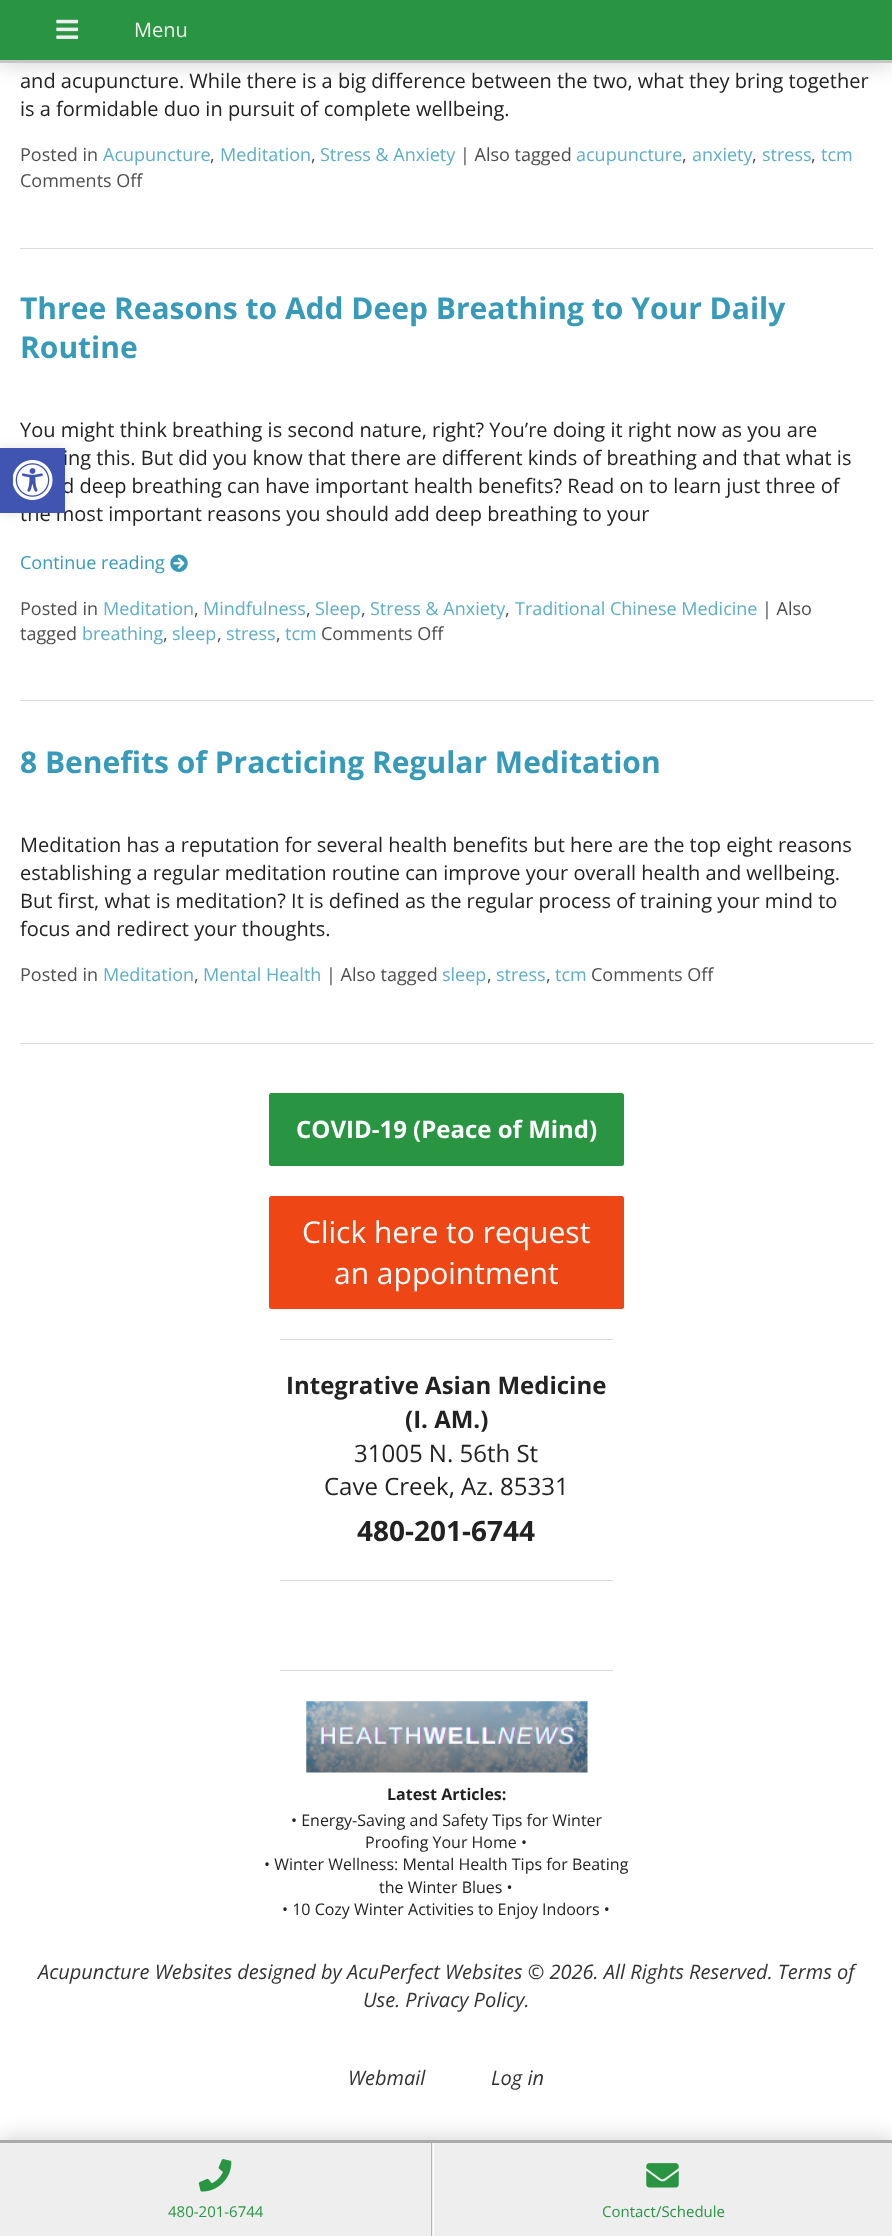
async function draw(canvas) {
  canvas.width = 892
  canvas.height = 2236
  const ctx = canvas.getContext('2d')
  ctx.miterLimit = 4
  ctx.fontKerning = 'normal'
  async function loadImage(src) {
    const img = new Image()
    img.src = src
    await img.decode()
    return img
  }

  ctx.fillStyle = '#fff'
  ctx.fillRect(0, 0, 892, 2236)
  ctx.fillStyle = '#00000026'
  ctx.filter = 'blur(10px)'
  ctx.beginPath()
  ctx.rect(0, 4, 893, 62)
  ctx.fill()
  ctx.filter = 'none'
  ctx.fillStyle = '#299543'
  ctx.fillRect(0, 0, 892, 60)
  ctx.fillStyle = '#c6c6c6'
  ctx.fillRect(0, 60, 892, 3)
  ctx.drawImage(await loadImage('image0.png'), 56, 19, 23, 20)
  ctx.font = '20px Open Sans'
  ctx.fillStyle = '#eee'
  ctx.fillText('Menu', 134, 37)
  ctx.fillStyle = '#d9d9d9'
  ctx.fillRect(20, 248, 853, 1)
  ctx.fillStyle = '#222'
  ctx.fillText('and acupuncture. While there is a big difference between the two, what they bring together', 20, 88)
  ctx.fillText('is a formidable duo in pursuit of complete wellbeing.', 20, 116)
  ctx.font = '18px Open Sans'
  ctx.fillStyle = '#4e4e4e'
  ctx.fillText('Posted in', 20, 161)
  ctx.fillStyle = '#5eaec6'
  ctx.fillText('Acupuncture', 103, 161)
  ctx.fillStyle = '#4e4e4e'
  ctx.fillText(',', 210, 161)
  ctx.fillStyle = '#5eaec6'
  ctx.fillText('Meditation', 220, 161)
  ctx.fillStyle = '#4e4e4e'
  ctx.fillText(',', 311, 161)
  ctx.fillStyle = '#5eaec6'
  ctx.fillText('Stress & Anxiety', 320, 161)
  ctx.fillStyle = '#4e4e4e'
  ctx.fillText('| Also tagged', 460, 161)
  ctx.fillStyle = '#5eaec6'
  ctx.fillText('acupuncture', 576, 161)
  ctx.fillStyle = '#4e4e4e'
  ctx.fillText(',', 682, 161)
  ctx.fillStyle = '#5eaec6'
  ctx.fillText('anxiety', 692, 161)
  ctx.fillStyle = '#4e4e4e'
  ctx.fillText(',', 752, 161)
  ctx.fillStyle = '#5eaec6'
  ctx.fillText('stress', 762, 161)
  ctx.fillStyle = '#4e4e4e'
  ctx.fillText(',', 811, 161)
  ctx.fillStyle = '#5eaec6'
  ctx.fillText('tcm', 821, 161)
  ctx.fillStyle = '#4e4e4e'
  ctx.fillText('Comments Off', 20, 187)
  ctx.fillStyle = '#d9d9d9'
  ctx.fillRect(20, 700, 853, 1)
  ctx.font = 'bold 30px Open Sans'
  ctx.fillStyle = '#369ab8'
  ctx.fillText('Three Reasons to Add Deep Breathing to Your Daily', 20, 319)
  ctx.fillText('Routine', 20, 358)
  ctx.font = '20px Open Sans'
  ctx.fillStyle = '#222'
  ctx.fillText('You might think breathing is second nature, right? You’re doing it right now as you are', 20, 437)
  ctx.fillText('ing this. But did you know that there are different kinds of breathing and that what is', 63, 465)
  ctx.fillText('d deep breathing can have important health benefits? Read on to learn just three of', 62, 493)
  ctx.fillText('the most important reasons you should add deep breathing to your', 20, 521)
  ctx.font = '18px Open Sans'
  ctx.fillStyle = '#369ab8'
  ctx.fillText('Continue reading', 20, 569)
  ctx.drawImage(await loadImage('image1.png'), 170, 554, 18, 18)
  ctx.fillStyle = '#4e4e4e'
  ctx.fillText('Posted in', 20, 615)
  ctx.fillStyle = '#5eaec6'
  ctx.fillText('Meditation', 103, 615)
  ctx.fillStyle = '#4e4e4e'
  ctx.fillText(',', 194, 615)
  ctx.fillStyle = '#5eaec6'
  ctx.fillText('Mindfulness', 203, 615)
  ctx.fillStyle = '#4e4e4e'
  ctx.fillText(',', 306, 615)
  ctx.fillStyle = '#5eaec6'
  ctx.fillText('Sleep', 315, 615)
  ctx.fillStyle = '#4e4e4e'
  ctx.fillText(',', 361, 615)
  ctx.fillStyle = '#5eaec6'
  ctx.fillText('Stress & Anxiety', 370, 615)
  ctx.fillStyle = '#4e4e4e'
  ctx.fillText(',', 505, 615)
  ctx.fillStyle = '#5eaec6'
  ctx.fillText('Traditional Chinese Medicine', 515, 615)
  ctx.fillStyle = '#4e4e4e'
  ctx.fillText('| Also', 762, 615)
  ctx.fillText('tagged', 20, 640)
  ctx.fillStyle = '#5eaec6'
  ctx.fillText('breathing', 82, 640)
  ctx.fillStyle = '#4e4e4e'
  ctx.fillText(',', 163, 640)
  ctx.fillStyle = '#5eaec6'
  ctx.fillText('sleep', 172, 640)
  ctx.fillStyle = '#4e4e4e'
  ctx.fillText(',', 217, 640)
  ctx.fillStyle = '#5eaec6'
  ctx.fillText('stress', 226, 640)
  ctx.fillStyle = '#4e4e4e'
  ctx.fillText(',', 276, 640)
  ctx.fillStyle = '#5eaec6'
  ctx.fillText('tcm', 285, 640)
  ctx.fillStyle = '#4e4e4e'
  ctx.fillText('Comments Off', 321, 640)
  ctx.fillStyle = '#d9d9d9'
  ctx.fillRect(20, 1043, 853, 1)
  ctx.font = 'bold 30px Open Sans'
  ctx.fillStyle = '#369ab8'
  ctx.fillText('8 Benefits of Practicing Regular Meditation', 20, 773)
  ctx.font = '20px Open Sans'
  ctx.fillStyle = '#222'
  ctx.fillText('Meditation has a reputation for several health benefits but here are the top eight reasons', 20, 852)
  ctx.fillText('establishing a regular meditation routine can improve your overall health and wellbeing.', 20, 880)
  ctx.fillText('But first, what is meditation? It is defined as the regular process of training your mind to', 20, 908)
  ctx.fillText('focus and redirect your thoughts.', 20, 936)
  ctx.font = '18px Open Sans'
  ctx.fillStyle = '#4e4e4e'
  ctx.fillText('Posted in', 20, 981)
  ctx.fillStyle = '#5eaec6'
  ctx.fillText('Meditation', 103, 981)
  ctx.fillStyle = '#4e4e4e'
  ctx.fillText(',', 194, 981)
  ctx.fillStyle = '#5eaec6'
  ctx.fillText('Mental Health', 203, 981)
  ctx.fillStyle = '#4e4e4e'
  ctx.fillText('| Also tagged', 326, 981)
  ctx.fillStyle = '#5eaec6'
  ctx.fillText('sleep', 442, 981)
  ctx.fillStyle = '#4e4e4e'
  ctx.fillText(',', 487, 981)
  ctx.fillStyle = '#5eaec6'
  ctx.fillText('stress', 496, 981)
  ctx.fillStyle = '#4e4e4e'
  ctx.fillText(',', 546, 981)
  ctx.fillStyle = '#5eaec6'
  ctx.fillText('tcm', 555, 981)
  ctx.fillStyle = '#4e4e4e'
  ctx.fillText('Comments Off', 591, 981)
  ctx.fillStyle = '#299543'
  ctx.beginPath()
  ctx.roundRect(269, 1093, 355, 73, 2.5)
  ctx.fill()
  ctx.font = 'bold 24px Open Sans'
  ctx.fillStyle = '#fff'
  ctx.fillText('COVID-19 (Peace of Mind)', 296, 1138)
  ctx.fillStyle = '#ee4614'
  ctx.beginPath()
  ctx.roundRect(269, 1196, 355, 113, 2.5)
  ctx.fill()
  ctx.font = '30px Open Sans'
  ctx.fillStyle = '#fff'
  ctx.fillText('Click here to request', 302, 1243)
  ctx.fillText('an appointment', 334, 1284)
  ctx.fillStyle = '#d9d9d9'
  ctx.fillRect(280, 1339, 333, 1)
  ctx.font = 'bold 24px Open Sans'
  ctx.fillStyle = '#222'
  ctx.fillText('Integrative Asian Medicine', 286, 1394)
  ctx.fillText('(I. AM.)', 405, 1428)
  ctx.font = '24px Open Sans'
  ctx.fillText('31005 N. 56th St', 354, 1462)
  ctx.fillText('Cave Creek, Az. 85331', 324, 1495)
  ctx.font = 'bold 28px Open Sans'
  ctx.fillText('480-201-6744', 357, 1541)
  ctx.fillStyle = '#d9d9d9'
  ctx.fillRect(280, 1580, 333, 1)
  ctx.fillRect(280, 1670, 333, 1)
  ctx.drawImage(await loadImage('image2.png'), 306, 1701, 282, 72)
  ctx.font = 'bold 16px Open Sans'
  ctx.fillStyle = '#222'
  ctx.fillText('Latest Articles:', 387, 1800)
  ctx.font = '16px Open Sans'
  ctx.fillText('• Energy-Saving and Safety Tips for Winter', 291, 1826)
  ctx.fillText('Proofing Your Home •', 365, 1848)
  ctx.fillText('• Winter Wellness: Mental Health Tips for Beating', 264, 1870)
  ctx.fillText('the Winter Blues •', 379, 1893)
  ctx.fillText('• 10 Cozy Winter Activities to Enjoy Indoors •', 282, 1915)
  ctx.font = 'italic 20px Open Sans'
  ctx.fillStyle = '#333'
  ctx.fillText('Acupuncture Websites designed by AcuPerfect Websites © 2026. All Rights Reserved. Terms of', 38, 1979)
  ctx.fillText('Use. Privacy Policy.', 363, 2007)
  ctx.fillText('Webmail', 348, 2085)
  ctx.fillText('Log in', 491, 2085)
  ctx.fillStyle = '#0000001a'
  ctx.filter = 'blur(6px)'
  ctx.beginPath()
  ctx.rect(0, 448, 65, 65)
  ctx.fill()
  ctx.filter = 'none'
  ctx.fillStyle = '#4054b2'
  ctx.fillRect(0, 448, 65, 65)
  ctx.drawImage(await loadImage('image3.png'), 13, 460, 40, 40)
  ctx.fillStyle = '#00000026'
  ctx.filter = 'blur(10px)'
  ctx.beginPath()
  ctx.rect(0, 2136, 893, 97)
  ctx.fill()
  ctx.filter = 'none'
  ctx.fillStyle = '#eee'
  ctx.fillRect(0, 2143, 892, 93)
  ctx.fillStyle = '#aaa'
  ctx.fillRect(0, 2140, 892, 3)
  ctx.fillStyle = '#b3b3b3'
  ctx.fillRect(431, 2143, 1, 93)
  ctx.drawImage(await loadImage('image4.png'), 198, 2159, 34, 33)
  ctx.font = '15px Open Sans'
  ctx.fillStyle = '#299543'
  ctx.fillText('480-201-6744', 168, 2217)
  ctx.fillStyle = '#fdfdfd'
  ctx.fillRect(433, 2143, 1, 93)
  ctx.drawImage(await loadImage('image5.png'), 646, 2163, 33, 25)
  ctx.fillStyle = '#299543'
  ctx.fillText('Contact/Schedule', 602, 2217)
}

draw(document.querySelector('canvas'))
